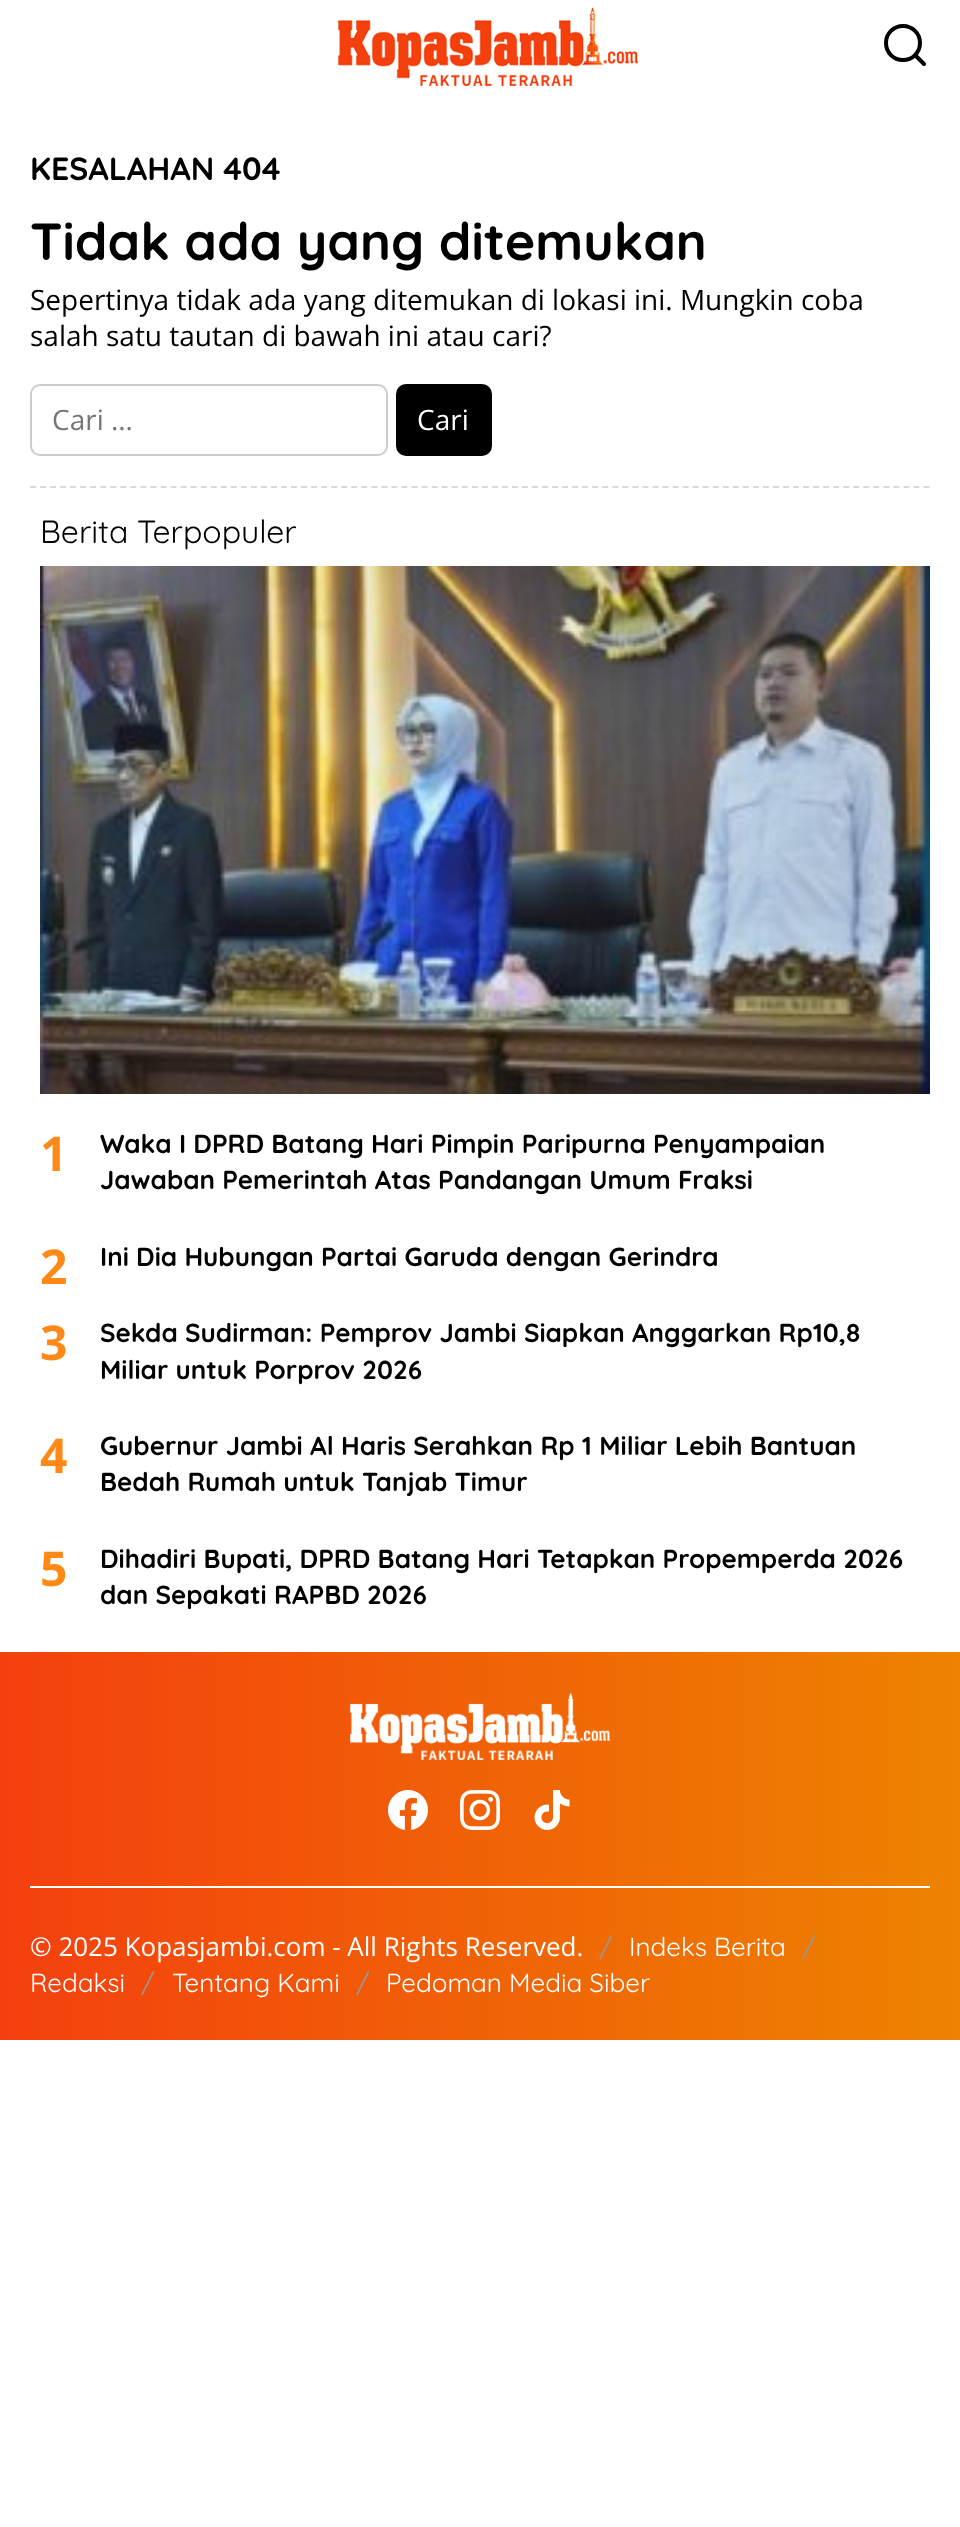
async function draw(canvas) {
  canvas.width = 960
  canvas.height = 2527
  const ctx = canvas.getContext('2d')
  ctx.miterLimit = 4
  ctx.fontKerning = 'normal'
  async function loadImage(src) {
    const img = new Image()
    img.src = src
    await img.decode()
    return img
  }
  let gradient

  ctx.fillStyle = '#fff'
  ctx.fillRect(0, 0, 960, 2527)
  ctx.drawImage(await loadImage('image0.png'), 338, 7, 300, 79)
  ctx.beginPath()
  ctx.moveTo(924, 64)
  ctx.lineTo(915, 55)
  ctx.moveTo(920, 43)
  ctx.bezierCurveTo(920, 52.5, 912.5, 60, 903, 60)
  ctx.bezierCurveTo(893.5, 60, 886, 52.5, 886, 43)
  ctx.bezierCurveTo(886, 33.5, 893.5, 26, 903, 26)
  ctx.bezierCurveTo(912.5, 26, 920, 33.5, 920, 43)
  ctx.closePath()
  ctx.strokeStyle = '#000'
  ctx.lineWidth = 4
  ctx.lineCap = 'round'
  ctx.stroke()
  ctx.font = 'bold 32px Quicksand'
  ctx.fillStyle = '#000'
  ctx.fillText('KESALAHAN 404', 30, 180)
  ctx.beginPath()
  ctx.moveTo(30, 487)
  ctx.lineTo(930, 487)
  ctx.strokeStyle = '#d9d9d9'
  ctx.lineWidth = 2
  ctx.lineCap = 'butt'
  ctx.setLineDash([6, 4.04])
  ctx.stroke()
  ctx.font = 'bold 52px Quicksand'
  ctx.fillText('Tidak ada yang ditemukan', 30, 260)
  ctx.font = '28px Open Sans'
  ctx.fillText('Sepertinya tidak ada yang ditemukan di lokasi ini. Mungkin coba', 30, 310)
  ctx.fillText('salah satu tautan di bawah ini atau cari?', 30, 346)
  ctx.beginPath()
  ctx.roundRect(31, 385, 356, 70, 9)
  ctx.strokeStyle = '#ccc'
  ctx.setLineDash([])
  ctx.stroke()
  ctx.fillStyle = '#757575'
  ctx.fillText('Cari …', 52, 430)
  ctx.fillStyle = '#000'
  ctx.beginPath()
  ctx.roundRect(397, 385, 94, 70, 9)
  ctx.fill()
  ctx.strokeStyle = '#000'
  ctx.stroke()
  ctx.fillStyle = '#fff'
  ctx.fillText('Cari', 417, 430)
  ctx.font = '32px Quicksand'
  ctx.fillStyle = '#000'
  ctx.fillText('Berita Terpopuler', 40, 543)
  ctx.drawImage(await loadImage('image1.png'), 40, 566, 890, 528)
  ctx.font = 'bold 48px Open Sans'
  ctx.fillStyle = '#fe8917'
  ctx.fillText('1', 40, 1171)
  ctx.font = 'bold 26px Quicksand'
  ctx.fillStyle = '#000'
  ctx.fillText('Waka I DPRD Batang Hari Pimpin Paripurna Penyampaian', 100, 1153)
  ctx.fillText('Jawaban Pemerintah Atas Pandangan Umum Fraksi', 100, 1189)
  ctx.font = 'bold 48px Open Sans'
  ctx.fillStyle = '#fe8917'
  ctx.fillText('2', 40, 1284)
  ctx.font = 'bold 26px Quicksand'
  ctx.fillStyle = '#000'
  ctx.fillText('Ini Dia Hubungan Partai Garuda dengan Gerindra', 100, 1266)
  ctx.font = 'bold 48px Open Sans'
  ctx.fillStyle = '#fe8917'
  ctx.fillText('3', 40, 1360)
  ctx.font = 'bold 26px Quicksand'
  ctx.fillStyle = '#000'
  ctx.fillText('Sekda Sudirman: Pemprov Jambi Siapkan Anggarkan Rp10,8', 100, 1342)
  ctx.fillText('Miliar untuk Porprov 2026', 100, 1379)
  ctx.font = 'bold 48px Open Sans'
  ctx.fillStyle = '#fe8917'
  ctx.fillText('4', 40, 1473)
  ctx.font = 'bold 26px Quicksand'
  ctx.fillStyle = '#000'
  ctx.fillText('Gubernur Jambi Al Haris Serahkan Rp 1 Miliar Lebih Bantuan', 100, 1455)
  ctx.fillText('Bedah Rumah untuk Tanjab Timur', 100, 1491)
  ctx.font = 'bold 48px Open Sans'
  ctx.fillStyle = '#fe8917'
  ctx.fillText('5', 40, 1586)
  ctx.font = 'bold 26px Quicksand'
  ctx.fillStyle = '#000'
  ctx.fillText('Dihadiri Bupati, DPRD Batang Hari Tetapkan Propemperda 2026', 100, 1568)
  ctx.fillText('dan Sepakati RAPBD 2026', 100, 1604)
  gradient = ctx.createLinearGradient(0, 1846, 960, 1846)
  gradient.addColorStop(0, '#f4400e')
  gradient.addColorStop(1, '#ed8300')
  ctx.fillStyle = gradient
  ctx.fillRect(0, 1652, 960, 388)
  ctx.fillStyle = '#fff'
  ctx.fillRect(30, 1886, 900, 2)
  ctx.drawImage(await loadImage('image2.png'), 350, 1692, 260, 68)
  ctx.drawImage(await loadImage('image3.png'), 388, 1790, 40, 40)
  ctx.drawImage(await loadImage('image4.png'), 460, 1790, 40, 40)
  ctx.drawImage(await loadImage('image5.png'), 534, 1790, 36, 40)
  ctx.font = '26px Quicksand'
  ctx.fillStyle = '#999'
  ctx.fillText('/', 599, 1956)
  ctx.fillStyle = '#fff'
  ctx.fillText('Indeks Berita', 629, 1956)
  ctx.fillStyle = '#999'
  ctx.fillText('/', 802, 1956)
  ctx.fillStyle = '#fff'
  ctx.fillText('Redaksi', 30, 1992)
  ctx.fillStyle = '#999'
  ctx.fillText('/', 141, 1992)
  ctx.fillStyle = '#fff'
  ctx.fillText('Tentang Kami', 172, 1992)
  ctx.fillStyle = '#999'
  ctx.fillText('/', 356, 1992)
  ctx.fillStyle = '#fff'
  ctx.fillText('Pedoman Media Siber', 386, 1992)
  ctx.font = '26px Open Sans'
  ctx.fillText('© 2025 Kopasjambi.com - All Rights Reserved.', 30, 1956)
}

draw(document.querySelector('canvas'))
